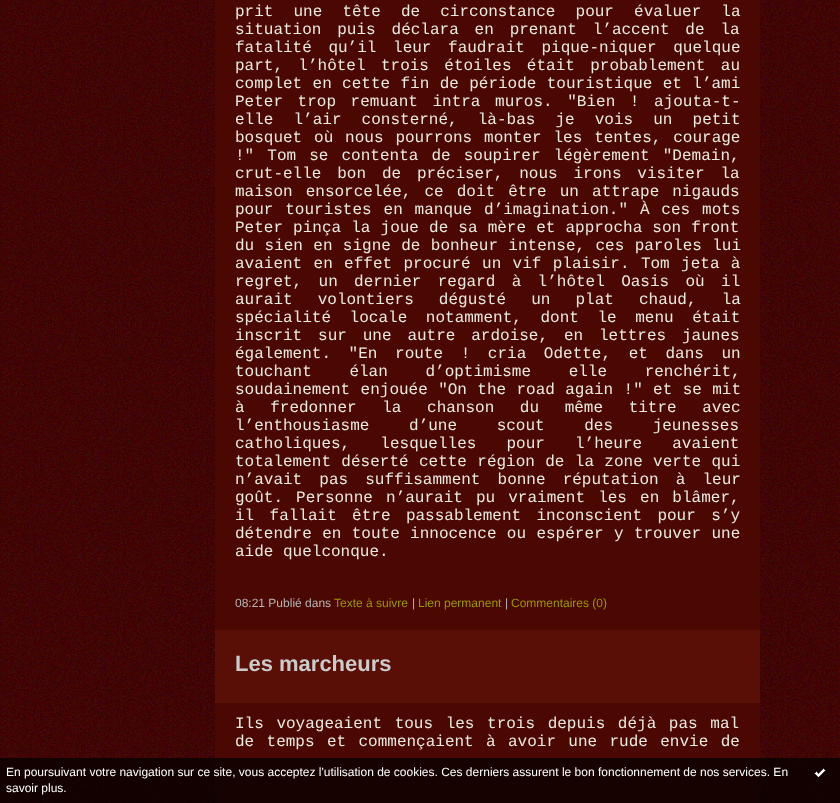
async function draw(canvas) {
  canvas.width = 840
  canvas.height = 803
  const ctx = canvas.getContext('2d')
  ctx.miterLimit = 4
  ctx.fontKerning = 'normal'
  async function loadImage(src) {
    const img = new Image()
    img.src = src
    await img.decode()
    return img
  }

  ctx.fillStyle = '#fff'
  ctx.fillRect(0, 0, 840, 803)
  ctx.drawImage(await loadImage('image0.png'), 0, 0, 840, 803)
  ctx.fillStyle = '#4b0803'
  ctx.fillRect(215, 0, 545, 630)
  ctx.wordSpacing = '10.5px'
  ctx.font = '16px Liberation Mono'
  ctx.fillStyle = '#eae9df'
  ctx.fillText('prit une tête de circonstance pour évaluer la', 235, 16)
  ctx.wordSpacing = '6.25px'
  ctx.fillText('situation puis déclara en prenant l’accent de la', 235, 34)
  ctx.wordSpacing = '7px'
  ctx.fillText('fatalité qu’il leur faudrait pique-niquer quelque', 235, 52)
  ctx.wordSpacing = '5.75px'
  ctx.fillText('part, l’hôtel trois étoiles était probablement au', 235, 70)
  ctx.wordSpacing = '0.75px'
  ctx.fillText('complet en cette fin de période touristique et l’ami', 235, 88)
  ctx.wordSpacing = '5px'
  ctx.fillText('Peter trop remuant intra muros. "Bien ! ajouta-t-', 235, 106)
  ctx.wordSpacing = '10.5px'
  ctx.fillText('elle l’air consterné, là-bas je vois un petit', 235, 124)
  ctx.wordSpacing = '2.25px'
  ctx.fillText('bosquet où nous pourrons monter les tentes, courage', 235, 142)
  ctx.wordSpacing = '3.5px'
  ctx.fillText('!" Tom se contenta de soupirer légèrement "Demain,', 235, 160)
  ctx.wordSpacing = '6.25px'
  ctx.fillText('crut-elle bon de préciser, nous irons visiter la', 235, 178)
  ctx.wordSpacing = '3.5px'
  ctx.fillText('maison ensorcelée, ce doit être un attrape nigauds', 235, 196)
  ctx.wordSpacing = '2.25px'
  ctx.fillText('pour touristes en manque d’imagination." À ces mots', 235, 214)
  ctx.wordSpacing = '0.5px'
  ctx.fillText('Peter pinça la joue de sa mère et approcha son front', 235, 232)
  ctx.wordSpacing = '0.75px'
  ctx.fillText('du sien en signe de bonheur intense, ces paroles lui', 235, 250)
  ctx.wordSpacing = '1.75px'
  ctx.fillText('avaient en effet procuré un vif plaisir. Tom jeta à', 235, 268)
  ctx.wordSpacing = '6.75px'
  ctx.fillText('regret, un dernier regard à l’hôtel Oasis où il', 235, 286)
  ctx.wordSpacing = '15.5px'
  ctx.fillText('aurait volontiers dégusté un plat chaud, la', 235, 304)
  ctx.wordSpacing = '9px'
  ctx.fillText('spécialité locale notamment, dont le menu était', 235, 322)
  ctx.wordSpacing = '6.25px'
  ctx.fillText('inscrit sur une autre ardoise, en lettres jaunes', 235, 340)
  ctx.wordSpacing = '8px'
  ctx.fillText('également. "En route ! cria Odette, et dans un', 235, 358)
  ctx.wordSpacing = '28px'
  ctx.fillText('touchant élan d’optimisme elle renchérit,', 235, 376)
  ctx.wordSpacing = '0.75px'
  ctx.fillText('soudainement enjouée "On the road again !" et se mit', 235, 394)
  ctx.wordSpacing = '16px'
  ctx.fillText('à fredonner la chanson du même titre avec', 235, 412)
  ctx.wordSpacing = '30px'
  ctx.fillText('l’enthousiasme d’une scout des jeunesses', 235, 430)
  ctx.wordSpacing = '20.5px'
  ctx.fillText('catholiques, lesquelles pour l’heure avaient', 235, 448)
  ctx.wordSpacing = '0.75px'
  ctx.fillText('totalement déserté cette région de la zone verte qui', 235, 466)
  ctx.wordSpacing = '7.5px'
  ctx.fillText('n’avait pas suffisamment bonne réputation à leur', 235, 484)
  ctx.wordSpacing = '3.5px'
  ctx.fillText('goût. Personne n’aurait pu vraiment les en blâmer,', 235, 502)
  ctx.wordSpacing = '5.75px'
  ctx.fillText('il fallait être passablement inconscient pour s’y', 235, 520)
  ctx.wordSpacing = '0.75px'
  ctx.fillText('détendre en toute innocence ou espérer y trouver une', 235, 538)
  ctx.wordSpacing = '0px'
  ctx.fillText('aide quelconque.', 235, 556)
  ctx.font = '12px Liberation Sans'
  ctx.fillStyle = '#b5b5b5'
  ctx.fillText('08:21 Publié dans', 235, 607)
  ctx.fillStyle = '#999702'
  ctx.fillText('Texte à suivre', 334, 607)
  ctx.fillStyle = '#b5b5b5'
  ctx.fillText('|', 412, 607)
  ctx.fillStyle = '#999702'
  ctx.fillText('Lien permanent', 418, 607)
  ctx.fillStyle = '#b5b5b5'
  ctx.fillText('|', 505, 607)
  ctx.fillStyle = '#999702'
  ctx.fillText('Commentaires (0)', 511, 607)
  ctx.fillStyle = '#590e06'
  ctx.fillRect(215, 630, 545, 73)
  ctx.font = 'bold 22px Liberation Sans'
  ctx.fillStyle = '#cbcbcb'
  ctx.fillText('Les marcheurs', 235, 671)
  ctx.fillStyle = '#4b0803'
  ctx.fillRect(215, 703, 545, 100)
  ctx.wordSpacing = '3px'
  ctx.font = '16px Liberation Mono'
  ctx.fillStyle = '#eae9df'
  ctx.fillText('Ils voyageaient tous les trois depuis déjà pas mal', 235, 728)
  ctx.wordSpacing = '2.75px'
  ctx.fillText('de temps et commençaient à avoir une rude envie de', 235, 746)
  ctx.fillStyle = '#000000b3'
  ctx.fillRect(0, 758, 840, 45)
  ctx.wordSpacing = '0px'
  ctx.font = '12px Liberation Sans'
  ctx.fillStyle = '#fff'
  ctx.fillText('En poursuivant votre navigation sur ce site, vous acceptez l\'utilisation de cookies. Ces derniers assurent le bon fonctionnement de nos services. En', 6, 776)
  ctx.fillText('savoir plus.', 6, 792)
  ctx.drawImage(await loadImage('image1.png'), 814, 768, 12, 9)
}

draw(document.querySelector('canvas'))
